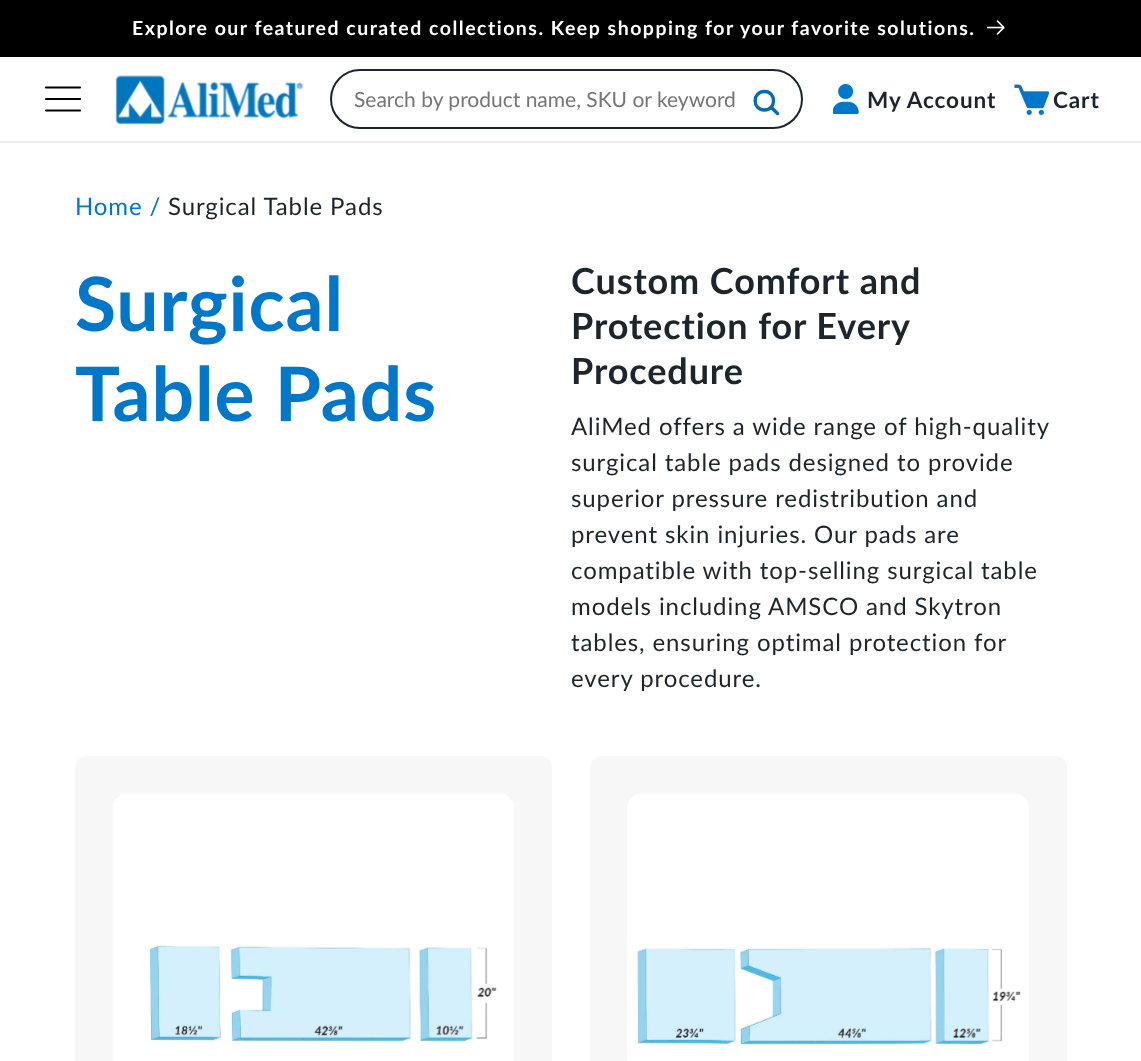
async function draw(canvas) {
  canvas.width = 1141
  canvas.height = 1061
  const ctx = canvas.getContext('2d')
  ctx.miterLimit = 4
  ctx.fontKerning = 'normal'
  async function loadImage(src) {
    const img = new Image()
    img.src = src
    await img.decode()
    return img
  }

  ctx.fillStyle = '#fff'
  ctx.fillRect(0, 0, 1141, 1061)
  ctx.fillStyle = '#000'
  ctx.fillRect(0, 0, 1141, 57)
  ctx.letterSpacing = '1.5px'
  ctx.font = 'bold 19.5px Lato'
  ctx.fillStyle = '#fff'
  ctx.fillText('Explore our featured curated collections. Keep shopping for your favorite solutions.', 132, 35)
  ctx.drawImage(await loadImage('image0.png'), 987, 20, 18, 15)
  ctx.fillStyle = '#ededee'
  ctx.fillRect(0, 141, 1141, 2)
  ctx.beginPath()
  ctx.moveTo(46, 87.5)
  ctx.lineTo(80, 87.5)
  ctx.moveTo(46, 99)
  ctx.lineTo(80, 99)
  ctx.moveTo(46, 110.5)
  ctx.lineTo(80, 110.5)
  ctx.strokeStyle = '#000'
  ctx.lineWidth = 2.2
  ctx.lineCap = 'round'
  ctx.lineJoin = 'round'
  ctx.stroke()
  ctx.drawImage(await loadImage('image1.png'), 115, 75, 189, 50)
  ctx.beginPath()
  ctx.roundRect(331, 70, 471, 58, 29)
  ctx.strokeStyle = '#1d252c'
  ctx.lineWidth = 2
  ctx.lineJoin = 'miter'
  ctx.stroke()
  ctx.letterSpacing = '0px'
  ctx.font = '21px Lato'
  ctx.fillStyle = '#757575'
  ctx.fillText('Search by product name, SKU or keyword', 354, 107)
  ctx.beginPath()
  ctx.moveTo(772, 108)
  ctx.lineTo(777.5, 113.5)
  ctx.moveTo(764.5, 110)
  ctx.bezierCurveTo(776.5, 110, 776.5, 91.5, 764.5, 91.5)
  ctx.bezierCurveTo(752, 91.5, 752, 110, 764.5, 110)
  ctx.closePath()
  ctx.strokeStyle = '#016bb5'
  ctx.lineWidth = 3.3
  ctx.lineJoin = 'round'
  ctx.stroke()
  ctx.drawImage(await loadImage('image2.png'), 833, 84, 26, 30)
  ctx.letterSpacing = '0.9px'
  ctx.font = 'bold 22.5px Lato'
  ctx.fillStyle = '#1d252c'
  ctx.fillText('My Account', 867, 108)
  ctx.drawImage(await loadImage('image3.png'), 1014, 84, 36, 31)
  ctx.fillText('Cart', 1053, 108)
  ctx.font = '24px Lato'
  ctx.fillStyle = '#0077c8'
  ctx.fillText('Home /', 75, 215)
  ctx.fillStyle = '#1d252c'
  ctx.fillText('Surgical Table Pads', 168, 215)
  ctx.font = 'bold 75px Lato'
  ctx.fillStyle = '#0077c8'
  ctx.fillText('Surgical', 75, 331)
  ctx.fillText('Table Pads', 75, 421)
  ctx.font = 'bold 36px Lato'
  ctx.fillStyle = '#1d252c'
  ctx.fillText('Custom Comfort and', 571, 294)
  ctx.fillText('Protection for Every', 571, 339)
  ctx.fillText('Procedure', 571, 384)
  ctx.font = '24px Lato'
  ctx.fillText('AliMed offers a wide range of high-quality', 571, 435)
  ctx.fillText('surgical table pads designed to provide', 571, 471)
  ctx.fillText('superior pressure redistribution and', 571, 507)
  ctx.fillText('prevent skin injuries. Our pads are', 571, 543)
  ctx.fillText('compatible with top-selling surgical table', 571, 579)
  ctx.fillText('models including AMSCO and Skytron', 571, 615)
  ctx.fillText('tables, ensuring optimal protection for', 571, 651)
  ctx.fillText('every procedure.', 571, 687)
  ctx.fillStyle = '#f7f7f7'
  ctx.beginPath()
  ctx.roundRect(75, 756, 477, 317, 12)
  ctx.fill()
  ctx.drawImage(await loadImage('image4.png'), 113, 794, 401, 267)
  ctx.beginPath()
  ctx.roundRect(590, 756, 477, 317, 12)
  ctx.fill()
  ctx.drawImage(await loadImage('image5.png'), 627, 794, 402, 267)
}

draw(document.querySelector('canvas'))
